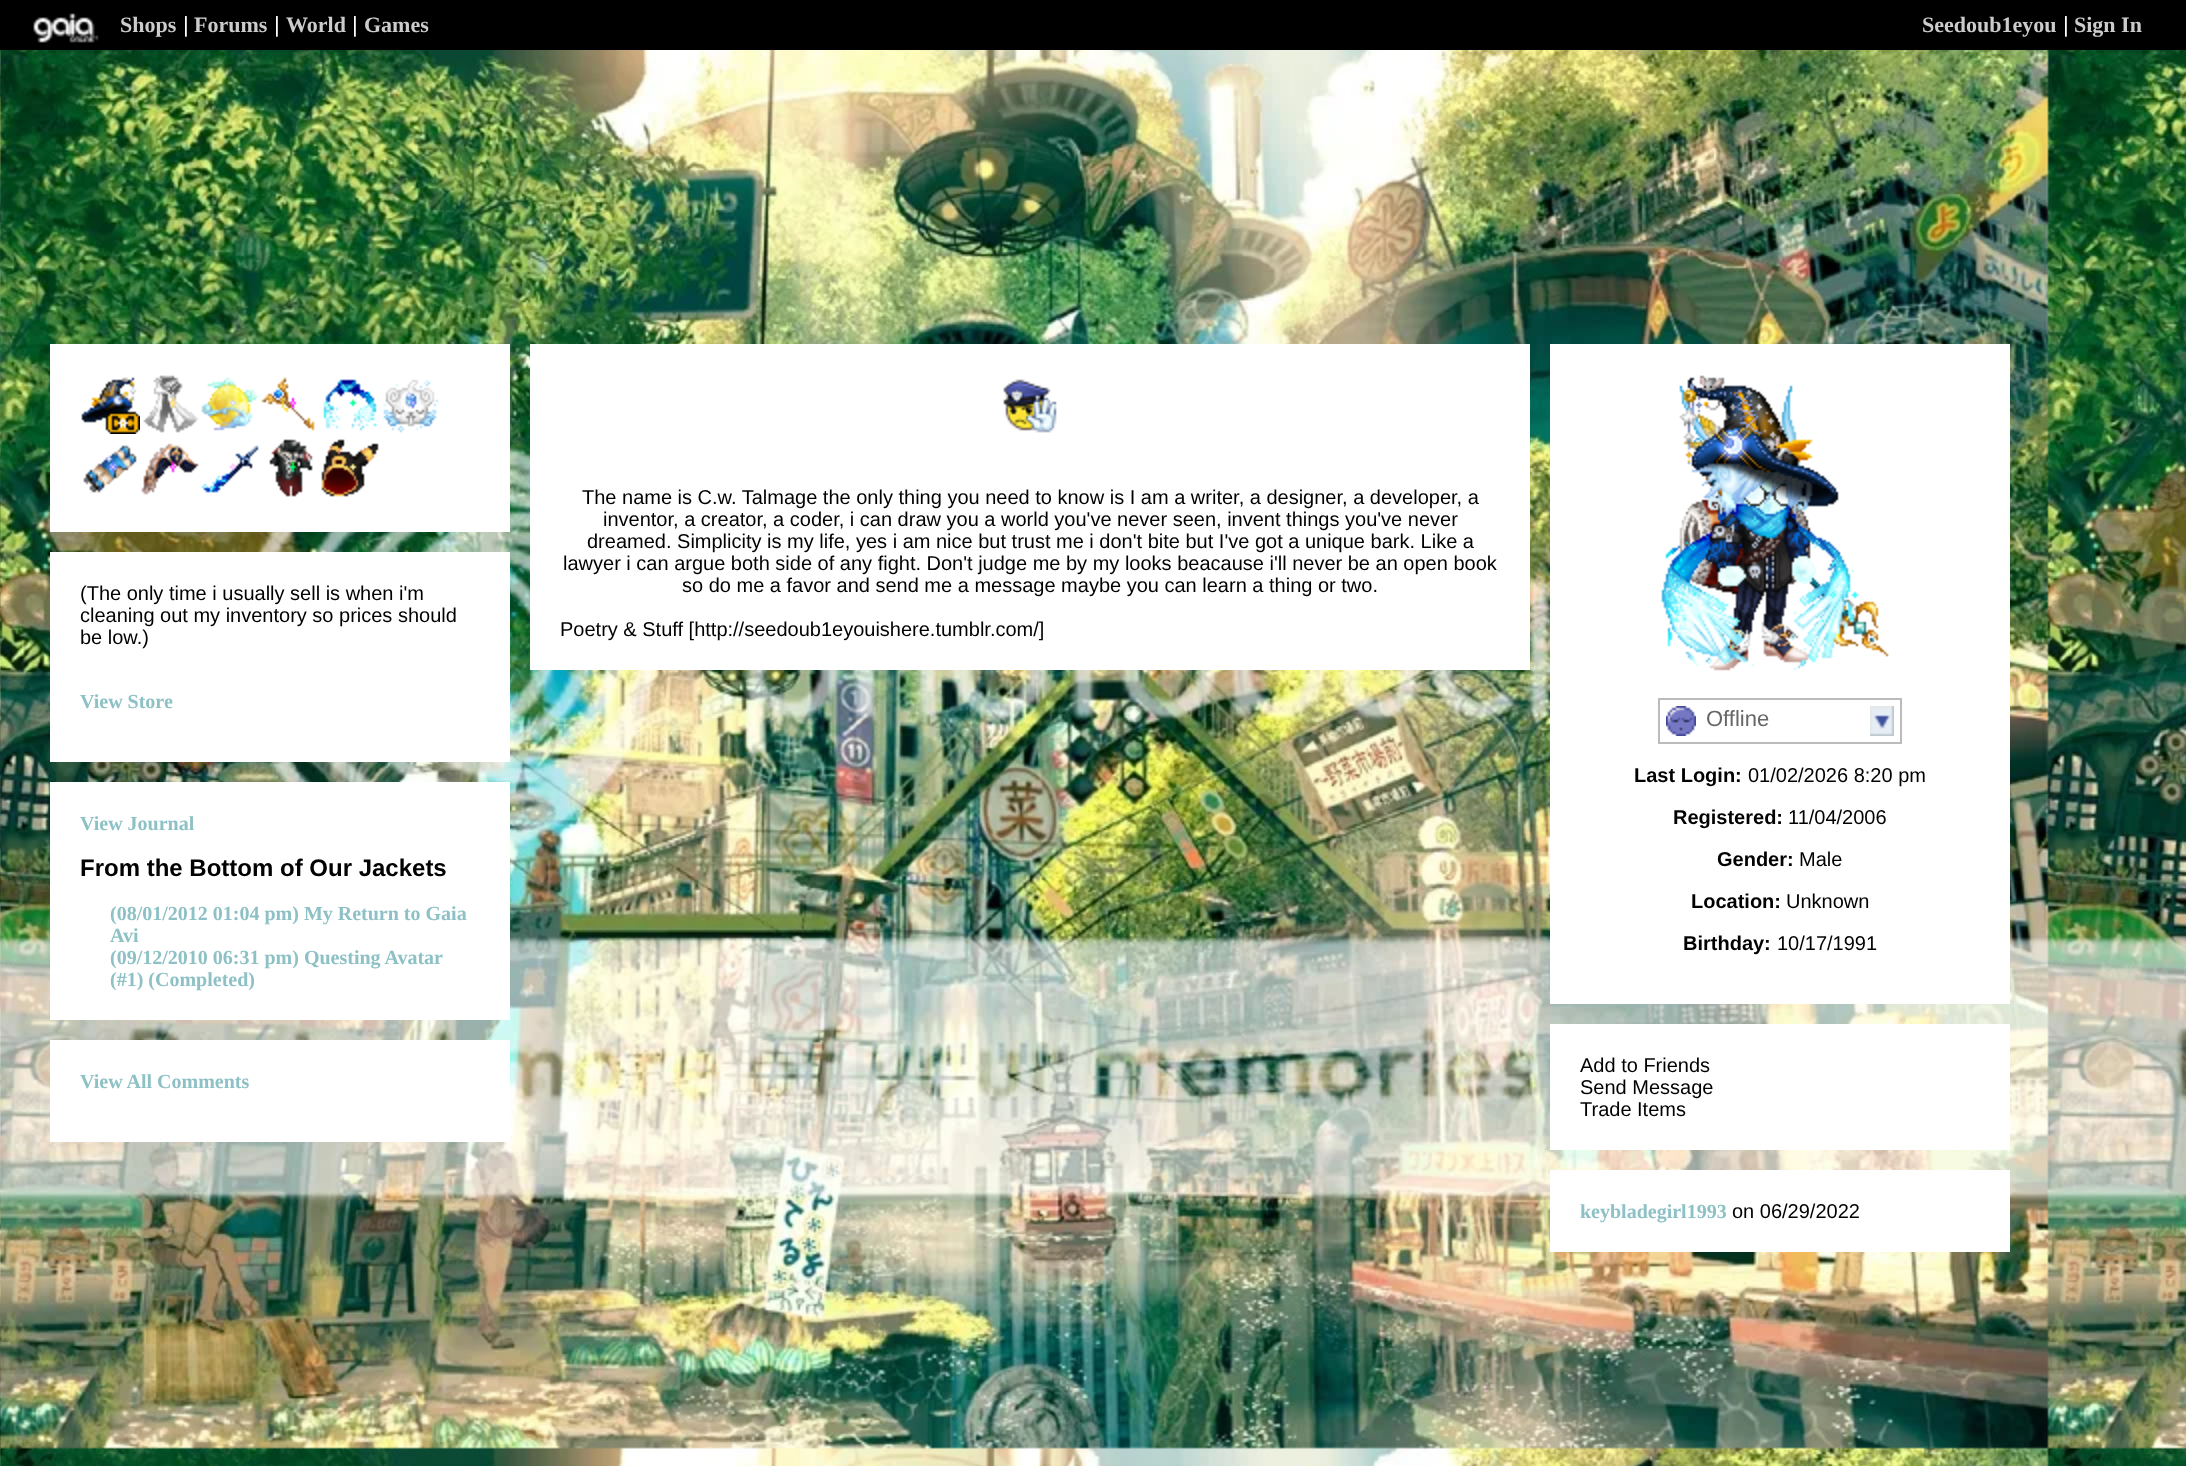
async function draw(canvas) {
  canvas.width = 2186
  canvas.height = 1466
  const ctx = canvas.getContext('2d')
  ctx.miterLimit = 4
  ctx.fontKerning = 'normal'
  async function loadImage(src) {
    const img = new Image()
    img.src = src
    await img.decode()
    return img
  }

  ctx.fillStyle = '#fff'
  ctx.fillRect(0, 0, 2186, 1466)
  ctx.drawImage(await loadImage('image0.png'), 0, 50, 2186, 1416)
  ctx.fillStyle = '#000'
  ctx.fillRect(0, 0, 2186, 50)
  ctx.drawImage(await loadImage('image1.png'), 33, 13, 66, 30)
  ctx.font = 'bold 22px Liberation Serif'
  ctx.fillStyle = '#ccc'
  ctx.fillText('Shops', 120, 32)
  ctx.font = '22px Liberation Sans'
  ctx.fillStyle = '#fff'
  ctx.fillText('|', 183, 32)
  ctx.font = 'bold 22px Liberation Serif'
  ctx.fillStyle = '#ccc'
  ctx.fillText('Forums', 194, 32)
  ctx.font = '22px Liberation Sans'
  ctx.fillStyle = '#fff'
  ctx.fillText('|', 274, 32)
  ctx.font = 'bold 22px Liberation Serif'
  ctx.fillStyle = '#ccc'
  ctx.fillText('World', 286, 32)
  ctx.font = '22px Liberation Sans'
  ctx.fillStyle = '#fff'
  ctx.fillText('|', 352, 32)
  ctx.font = 'bold 22px Liberation Serif'
  ctx.fillStyle = '#ccc'
  ctx.fillText('Games', 364, 32)
  ctx.fillText('Seedoub1eyou', 1922, 32)
  ctx.font = '22px Liberation Sans'
  ctx.fillStyle = '#fff'
  ctx.fillText('|', 2063, 32)
  ctx.font = 'bold 22px Liberation Serif'
  ctx.fillStyle = '#ccc'
  ctx.fillText('Sign In', 2074, 32)
  ctx.fillStyle = '#fff'
  ctx.fillRect(530, 344, 1000, 326)
  ctx.drawImage(await loadImage('image2.png'), 1003, 379, 54, 54)
  ctx.font = '20px Liberation Sans'
  ctx.fillStyle = '#000'
  ctx.fillText('The name is C.w. Talmage the only thing you need to know is I am a writer, a designer, a developer, a', 582, 504)
  ctx.fillText('inventor, a creator, a coder, i can draw you a world you\'ve never seen, invent things you\'ve never', 603, 526)
  ctx.fillText('dreamed. Simplicity is my life, yes i am nice but trust me i don\'t bite but I\'ve got a unique bark. Like a', 587, 548)
  ctx.fillText('lawyer i can argue both side of any fight. Don\'t judge me by my looks beacause i\'ll never be an open book', 563, 570)
  ctx.fillText('so do me a favor and send me a message maybe you can learn a thing or two.', 682, 592)
  ctx.fillText('Poetry & Stuff [http://seedoub1eyouishere.tumblr.com/]', 560, 636)
  ctx.fillStyle = '#fff'
  ctx.fillRect(50, 344, 460, 188)
  ctx.drawImage(await loadImage('image3.png'), 81, 377, 59, 57)
  ctx.drawImage(await loadImage('image4.png'), 143, 375, 56, 58)
  ctx.drawImage(await loadImage('image5.png'), 169, 397, 8, 12)
  ctx.drawImage(await loadImage('image6.png'), 201, 377, 58, 54)
  ctx.drawImage(await loadImage('image7.png'), 229, 399, 8, 8)
  ctx.drawImage(await loadImage('image8.png'), 261, 377, 54, 54)
  ctx.drawImage(await loadImage('image9.png'), 289, 397, 8, 12)
  ctx.drawImage(await loadImage('image10.png'), 323, 379, 54, 52)
  ctx.drawImage(await loadImage('image11.png'), 349, 399, 8, 8)
  ctx.drawImage(await loadImage('image12.png'), 383, 379, 56, 54)
  ctx.drawImage(await loadImage('image13.png'), 405, 391, 12, 18)
  ctx.drawImage(await loadImage('image14.png'), 83, 445, 54, 48)
  ctx.drawImage(await loadImage('image15.png'), 105, 455, 14, 18)
  ctx.drawImage(await loadImage('image16.png'), 141, 443, 58, 52)
  ctx.drawImage(await loadImage('image17.png'), 169, 461, 8, 12)
  ctx.drawImage(await loadImage('image18.png'), 201, 445, 58, 48)
  ctx.drawImage(await loadImage('image19.png'), 229, 463, 8, 8)
  ctx.drawImage(await loadImage('image20.png'), 269, 439, 44, 58)
  ctx.drawImage(await loadImage('image21.png'), 289, 461, 8, 12)
  ctx.drawImage(await loadImage('image22.png'), 321, 439, 58, 58)
  ctx.drawImage(await loadImage('image23.png'), 349, 463, 8, 8)
  ctx.fillRect(50, 552, 460, 210)
  ctx.fillStyle = '#000'
  ctx.fillText('(The only time i usually sell is when i\'m', 80, 600)
  ctx.fillText('cleaning out my inventory so prices should', 80, 622)
  ctx.fillText('be low.)', 80, 644)
  ctx.font = 'bold 20px Liberation Serif'
  ctx.fillStyle = '#8dc1c5'
  ctx.fillText('View Store', 80, 708)
  ctx.fillStyle = '#fff'
  ctx.fillRect(50, 782, 460, 238)
  ctx.fillStyle = '#8dc1c5'
  ctx.fillText('View Journal', 80, 830)
  ctx.font = 'bold 24px Liberation Sans'
  ctx.fillStyle = '#000'
  ctx.fillText('From the Bottom of Our Jackets', 80, 876)
  ctx.font = 'bold 20px Liberation Serif'
  ctx.fillStyle = '#8dc1c5'
  ctx.fillText('(08/01/2012 01:04 pm) My Return to Gaia', 110, 920)
  ctx.fillText('Avi', 110, 942)
  ctx.fillText('(09/12/2010 06:31 pm) Questing Avatar', 110, 964)
  ctx.fillText('(#1) (Completed)', 110, 986)
  ctx.fillStyle = '#fff'
  ctx.fillRect(50, 1040, 460, 102)
  ctx.fillStyle = '#8dc1c5'
  ctx.fillText('View All Comments', 80, 1088)
  ctx.fillStyle = '#fff'
  ctx.fillRect(1550, 344, 460, 660)
  ctx.drawImage(await loadImage('image24.png'), 1661, 375, 228, 296)
  ctx.strokeStyle = '#bbb'
  ctx.lineWidth = 2
  ctx.strokeRect(1659, 699, 242, 44)
  ctx.drawImage(await loadImage('image25.png'), 1870, 706, 24, 30)
  ctx.drawImage(await loadImage('image26.png'), 1666, 706, 30, 30)
  ctx.font = '22px Liberation Sans'
  ctx.fillStyle = '#666'
  ctx.fillText('Offline', 1706, 726)
  ctx.font = 'bold 20px Liberation Sans'
  ctx.fillStyle = '#000'
  ctx.fillText('Last Login:', 1634, 782)
  ctx.font = '20px Liberation Sans'
  ctx.fillText('01/02/2026 8:20 pm', 1748, 782)
  ctx.font = 'bold 20px Liberation Sans'
  ctx.fillText('Registered:', 1673, 824)
  ctx.font = '20px Liberation Sans'
  ctx.fillText('11/04/2006', 1788, 824)
  ctx.font = 'bold 20px Liberation Sans'
  ctx.fillText('Gender:', 1717, 866)
  ctx.font = '20px Liberation Sans'
  ctx.fillText('Male', 1799, 866)
  ctx.font = 'bold 20px Liberation Sans'
  ctx.fillText('Location:', 1691, 908)
  ctx.font = '20px Liberation Sans'
  ctx.fillText('Unknown', 1786, 908)
  ctx.font = 'bold 20px Liberation Sans'
  ctx.fillText('Birthday:', 1683, 950)
  ctx.font = '20px Liberation Sans'
  ctx.fillText('10/17/1991', 1777, 950)
  ctx.fillStyle = '#fff'
  ctx.fillRect(1550, 1024, 460, 126)
  ctx.fillStyle = '#000'
  ctx.fillText('Add to Friends', 1580, 1072)
  ctx.fillText('Send Message', 1580, 1094)
  ctx.fillText('Trade Items', 1580, 1116)
  ctx.fillStyle = '#fff'
  ctx.fillRect(1550, 1170, 460, 82)
  ctx.font = 'bold 20px Liberation Serif'
  ctx.fillStyle = '#8dc1c5'
  ctx.fillText('keybladegirl1993', 1580, 1218)
  ctx.font = '20px Liberation Sans'
  ctx.fillStyle = '#000'
  ctx.fillText('on 06/29/2022', 1732, 1218)
}

draw(document.querySelector('canvas'))
